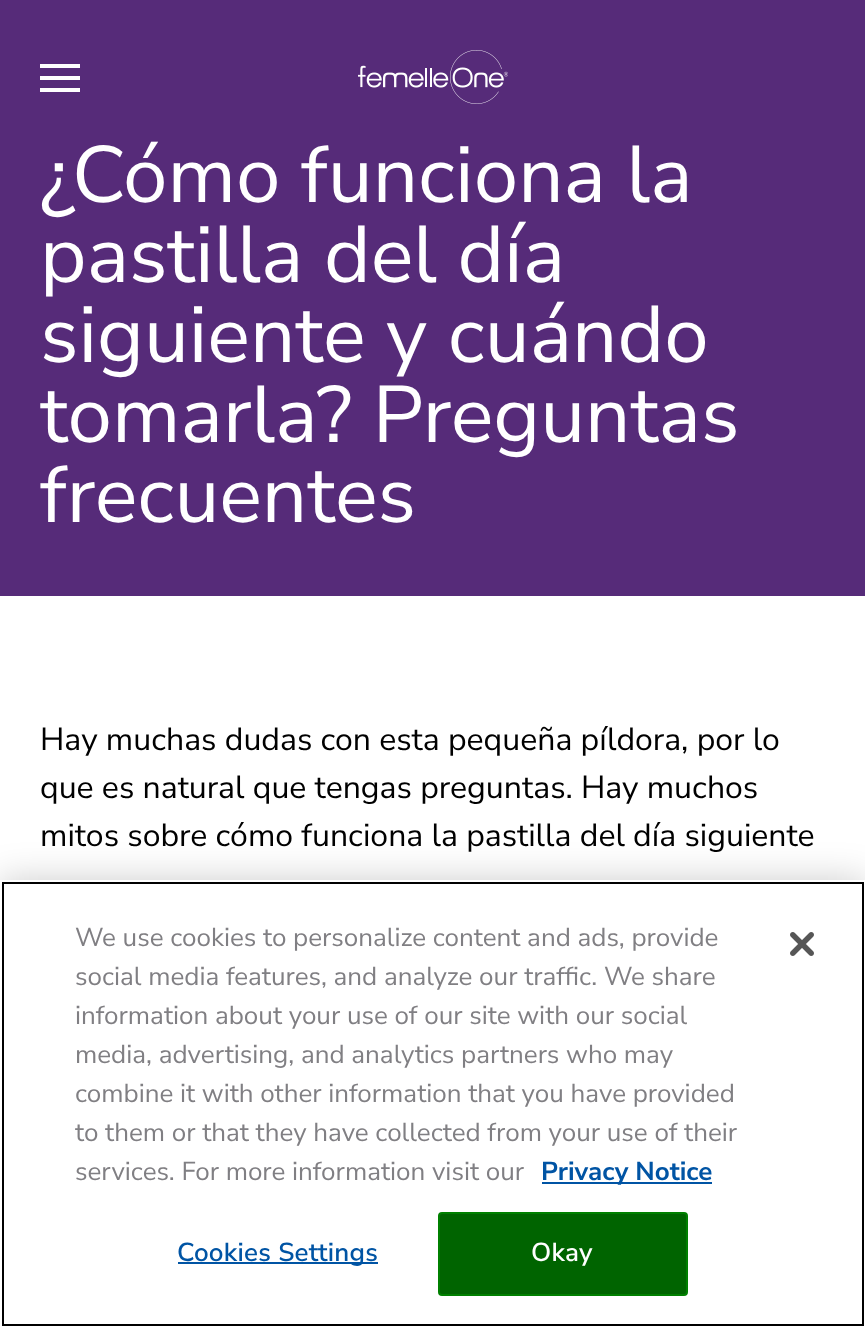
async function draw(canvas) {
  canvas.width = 865
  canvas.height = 1327
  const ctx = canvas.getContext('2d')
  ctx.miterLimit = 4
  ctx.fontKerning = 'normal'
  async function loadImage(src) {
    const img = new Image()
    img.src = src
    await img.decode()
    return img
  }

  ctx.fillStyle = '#fff'
  ctx.fillRect(0, 0, 865, 1327)
  ctx.fillStyle = '#562b79'
  ctx.fillRect(0, 0, 865, 596)
  ctx.fillStyle = '#fff'
  ctx.beginPath()
  ctx.moveTo(40, 64)
  ctx.lineTo(80, 64)
  ctx.lineTo(80, 68)
  ctx.lineTo(40, 68)
  ctx.closePath()
  ctx.moveTo(40, 76)
  ctx.lineTo(80, 76)
  ctx.lineTo(80, 80)
  ctx.lineTo(40, 80)
  ctx.closePath()
  ctx.moveTo(40, 88)
  ctx.lineTo(80, 88)
  ctx.lineTo(80, 92)
  ctx.lineTo(40, 92)
  ctx.closePath()
  ctx.fill()
  ctx.drawImage(await loadImage('image0.png'), 358, 50, 150, 54)
  ctx.font = '80px Nunito Sans'
  ctx.fillText('¿Cómo funciona la', 40, 202)
  ctx.fillText('pastilla del día', 40, 282)
  ctx.fillText('siguiente y cuándo', 40, 362)
  ctx.fillText('tomarla? Preguntas', 40, 442)
  ctx.fillText('frecuentes', 40, 522)
  ctx.font = '32px Nunito Sans'
  ctx.fillStyle = '#000'
  ctx.fillText('Hay muchas dudas con esta pequeña píldora, por lo', 40, 750)
  ctx.fillText('que es natural que tengas preguntas. Hay muchos', 40, 798)
  ctx.fillText('mitos sobre cómo funciona la pastilla del día siguiente', 40, 846)
  ctx.fillStyle = '#00000033'
  ctx.filter = 'blur(18px)'
  ctx.beginPath()
  ctx.rect(0, 880, 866, 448)
  ctx.fill()
  ctx.filter = 'none'
  ctx.fillStyle = '#fff'
  ctx.fillRect(0, 880, 865, 447)
  ctx.strokeStyle = '#000'
  ctx.lineWidth = 2
  ctx.strokeRect(3, 883, 860, 442)
  ctx.font = '26px Nunito Sans'
  ctx.fillStyle = '#807f83'
  ctx.fillText('We use cookies to personalize content and ads, provide', 75, 946)
  ctx.fillText('social media features, and analyze our traffic. We share', 75, 985)
  ctx.fillText('information about your use of our site with our social', 75, 1024)
  ctx.fillText('media, advertising, and analytics partners who may', 75, 1063)
  ctx.fillText('combine it with other information that you have provided', 75, 1102)
  ctx.fillText('to them or that they have collected from your use of their', 75, 1141)
  ctx.fillText('services. For more information visit our', 75, 1180)
  ctx.fillStyle = '#0054a4'
  ctx.fillRect(542, 1182, 170, 2)
  ctx.font = 'bold 26px Nunito Sans'
  ctx.fillText('Privacy Notice', 541, 1180)
  ctx.fillRect(178, 1262, 200, 2)
  ctx.letterSpacing = '0.25px'
  ctx.font = '600 26px Nunito Sans'
  ctx.fillText('Cookies Settings', 177, 1261)
  ctx.fillStyle = '#006400'
  ctx.beginPath()
  ctx.roundRect(439, 1213, 248, 82, 3)
  ctx.fill()
  ctx.strokeStyle = '#008000'
  ctx.stroke()
  ctx.fillStyle = '#fff'
  ctx.fillText('Okay', 531, 1261)
  ctx.drawImage(await loadImage('image1.png'), 790, 932, 24, 24)
}

draw(document.querySelector('canvas'))
